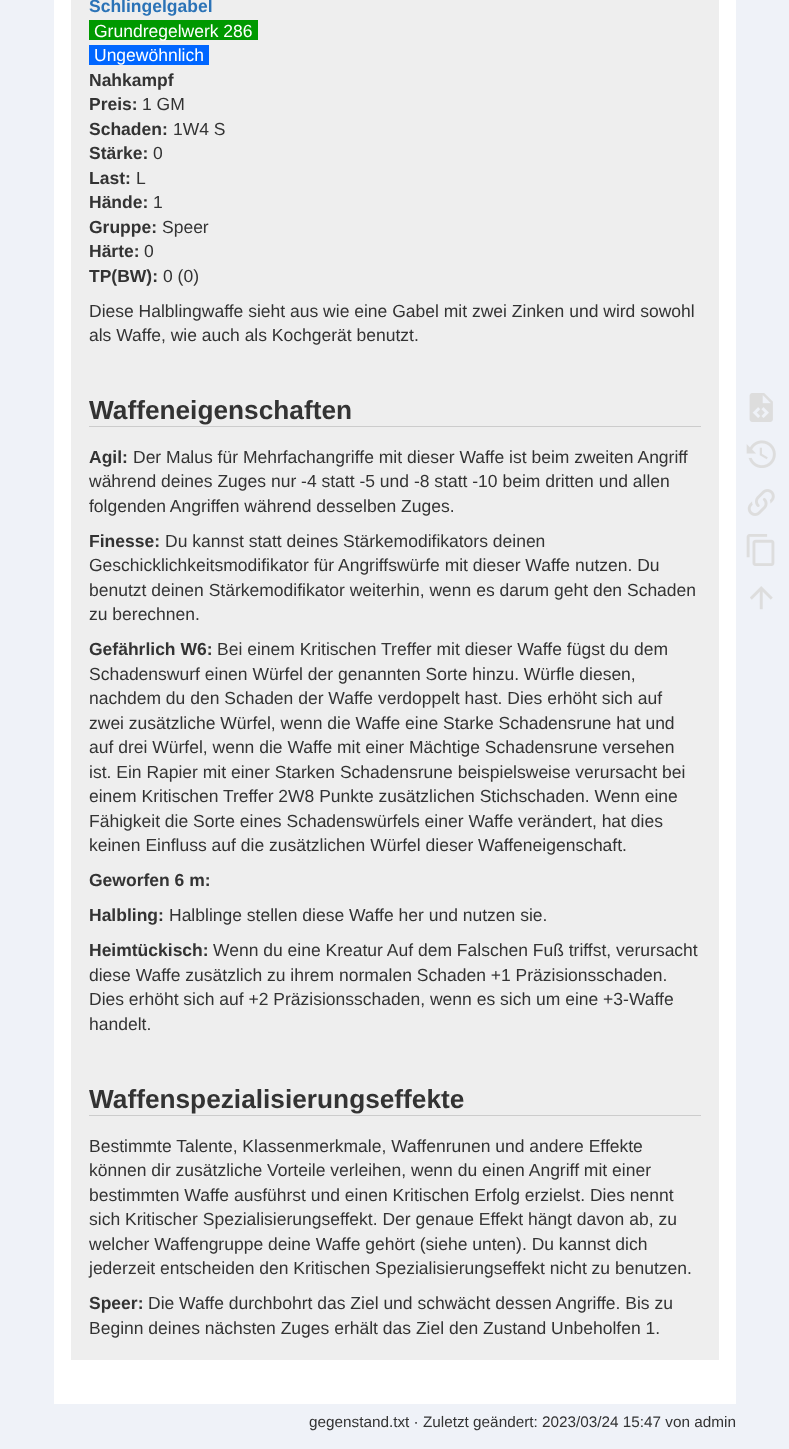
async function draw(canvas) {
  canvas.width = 789
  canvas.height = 1449
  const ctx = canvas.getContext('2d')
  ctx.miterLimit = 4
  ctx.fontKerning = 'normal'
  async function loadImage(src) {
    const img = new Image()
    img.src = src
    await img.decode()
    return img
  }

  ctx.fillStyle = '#eff2f8'
  ctx.fillRect(0, 0, 789, 1449)
  ctx.fillStyle = '#fff'
  ctx.fillRect(54, 0, 682, 1404)
  ctx.fillStyle = '#eee'
  ctx.fillRect(71, 0, 648, 1360)
  ctx.font = 'bold 17.5px Liberation Sans'
  ctx.fillStyle = '#2b73b7'
  ctx.fillText('Schlingelgabel', 89, 12)
  ctx.fillStyle = '#090'
  ctx.fillRect(89, 20, 169, 20)
  ctx.font = '17.5px Liberation Sans'
  ctx.fillStyle = '#fff'
  ctx.fillText('Grundregelwerk 286', 94, 37)
  ctx.fillStyle = '#06f'
  ctx.fillRect(89, 45, 120, 20)
  ctx.fillStyle = '#fff'
  ctx.fillText('Ungewöhnlich', 94, 61)
  ctx.font = 'bold 17.5px Liberation Sans'
  ctx.fillStyle = '#333'
  ctx.fillText('Nahkampf', 89, 86)
  ctx.fillText('Preis:', 89, 110)
  ctx.font = '17.5px Liberation Sans'
  ctx.fillText('1 GM', 142, 110)
  ctx.font = 'bold 17.5px Liberation Sans'
  ctx.fillText('Schaden:', 89, 135)
  ctx.font = '17.5px Liberation Sans'
  ctx.fillText('1W4 S', 173, 135)
  ctx.font = 'bold 17.5px Liberation Sans'
  ctx.fillText('Stärke:', 89, 159)
  ctx.font = '17.5px Liberation Sans'
  ctx.fillText('0', 153, 159)
  ctx.font = 'bold 17.5px Liberation Sans'
  ctx.fillText('Last:', 89, 184)
  ctx.font = '17.5px Liberation Sans'
  ctx.fillText('L', 136, 184)
  ctx.font = 'bold 17.5px Liberation Sans'
  ctx.fillText('Hände:', 89, 208)
  ctx.font = '17.5px Liberation Sans'
  ctx.fillText('1', 153, 208)
  ctx.font = 'bold 17.5px Liberation Sans'
  ctx.fillText('Gruppe:', 89, 233)
  ctx.font = '17.5px Liberation Sans'
  ctx.fillText('Speer', 162, 233)
  ctx.font = 'bold 17.5px Liberation Sans'
  ctx.fillText('Härte:', 89, 257)
  ctx.font = '17.5px Liberation Sans'
  ctx.fillText('0', 144, 257)
  ctx.font = 'bold 17.5px Liberation Sans'
  ctx.fillText('TP(BW):', 89, 282)
  ctx.font = '17.5px Liberation Sans'
  ctx.fillText('0 (0)', 163, 282)
  ctx.fillText('Diese Halblingwaffe sieht aus wie eine Gabel mit zwei Zinken und wird sowohl', 89, 317)
  ctx.fillText('als Waffe, wie auch als Kochgerät benutzt.', 89, 341)
  ctx.fillStyle = '#ccc'
  ctx.fillRect(89, 426, 612, 1)
  ctx.font = 'bold 26.25px Liberation Sans'
  ctx.fillStyle = '#333'
  ctx.fillText('Waffeneigenschaften', 89, 419)
  ctx.font = 'bold 17.5px Liberation Sans'
  ctx.fillText('Agil:', 89, 463)
  ctx.font = '17.5px Liberation Sans'
  ctx.fillText('Der Malus für Mehrfachangriffe mit dieser Waffe ist beim zweiten Angriff', 133, 463)
  ctx.fillText('während deines Zuges nur -4 statt -5 und -8 statt -10 beim dritten und allen', 89, 487)
  ctx.fillText('folgenden Angriffen während desselben Zuges.', 89, 512)
  ctx.font = 'bold 17.5px Liberation Sans'
  ctx.fillText('Finesse:', 89, 547)
  ctx.font = '17.5px Liberation Sans'
  ctx.fillText('Du kannst statt deines Stärkemodifikators deinen', 165, 547)
  ctx.fillText('Geschicklichkeitsmodifikator für Angriffswürfe mit dieser Waffe nutzen. Du', 89, 571)
  ctx.fillText('benutzt deinen Stärkemodifikator weiterhin, wenn es darum geht den Schaden', 89, 596)
  ctx.fillText('zu berechnen.', 89, 620)
  ctx.font = 'bold 17.5px Liberation Sans'
  ctx.fillText('Gefährlich W6:', 89, 655)
  ctx.font = '17.5px Liberation Sans'
  ctx.fillText('Bei einem Kritischen Treffer mit dieser Waffe fügst du dem', 217, 655)
  ctx.fillText('Schadenswurf einen Würfel der genannten Sorte hinzu. Würfle diesen,', 89, 680)
  ctx.fillText('nachdem du den Schaden der Waffe verdoppelt hast. Dies erhöht sich auf', 89, 704)
  ctx.fillText('zwei zusätzliche Würfel, wenn die Waffe eine Starke Schadensrune hat und', 89, 729)
  ctx.fillText('auf drei Würfel, wenn die Waffe mit einer Mächtige Schadensrune versehen', 89, 753)
  ctx.fillText('ist. Ein Rapier mit einer Starken Schadensrune beispielsweise verursacht bei', 89, 778)
  ctx.fillText('einem Kritischen Treffer 2W8 Punkte zusätzlichen Stichschaden. Wenn eine', 89, 802)
  ctx.fillText('Fähigkeit die Sorte eines Schadenswürfels einer Waffe verändert, hat dies', 89, 827)
  ctx.fillText('keinen Einfluss auf die zusätzlichen Würfel dieser Waffeneigenschaft.', 89, 851)
  ctx.font = 'bold 17.5px Liberation Sans'
  ctx.fillText('Geworfen 6 m:', 89, 886)
  ctx.fillText('Halbling:', 89, 921)
  ctx.font = '17.5px Liberation Sans'
  ctx.fillText('Halblinge stellen diese Waffe her und nutzen sie.', 169, 921)
  ctx.font = 'bold 17.5px Liberation Sans'
  ctx.fillText('Heimtückisch:', 89, 956)
  ctx.font = '17.5px Liberation Sans'
  ctx.fillText('Wenn du eine Kreatur Auf dem Falschen Fuß triffst, verursacht', 213, 956)
  ctx.fillText('diese Waffe zusätzlich zu ihrem normalen Schaden +1 Präzisionsschaden.', 89, 981)
  ctx.fillText('Dies erhöht sich auf +2 Präzisionsschaden, wenn es sich um eine +3-Waffe', 89, 1005)
  ctx.fillText('handelt.', 89, 1030)
  ctx.fillStyle = '#ccc'
  ctx.fillRect(89, 1115, 612, 1)
  ctx.font = 'bold 26.25px Liberation Sans'
  ctx.fillStyle = '#333'
  ctx.fillText('Waffenspezialisierungseffekte', 89, 1108)
  ctx.font = '17.5px Liberation Sans'
  ctx.fillText('Bestimmte Talente, Klassenmerkmale, Waffenrunen und andere Effekte', 89, 1152)
  ctx.fillText('können dir zusätzliche Vorteile verleihen, wenn du einen Angriff mit einer', 89, 1176)
  ctx.fillText('bestimmten Waffe ausführst und einen Kritischen Erfolg erzielst. Dies nennt', 89, 1201)
  ctx.fillText('sich Kritischer Spezialisierungseffekt. Der genaue Effekt hängt davon ab, zu', 89, 1225)
  ctx.fillText('welcher Waffengruppe deine Waffe gehört (siehe unten). Du kannst dich', 89, 1250)
  ctx.fillText('jederzeit entscheiden den Kritischen Spezialisierungseffekt nicht zu benutzen.', 89, 1274)
  ctx.font = 'bold 17.5px Liberation Sans'
  ctx.fillText('Speer:', 89, 1309)
  ctx.font = '17.5px Liberation Sans'
  ctx.fillText('Die Waffe durchbohrt das Ziel und schwächt dessen Angriffe. Bis zu', 148, 1309)
  ctx.fillText('Beginn deines nächsten Zuges erhält das Ziel den Zustand Unbeholfen 1.', 89, 1334)
  ctx.font = '15.3px Liberation Sans'
  ctx.fillText('gegenstand.txt · Zuletzt geändert: 2023/03/24 15:47 von admin', 309, 1427)
  ctx.drawImage(await loadImage('image0.png'), 749, 393, 24, 29)
  ctx.drawImage(await loadImage('image1.png'), 746, 440, 30, 28)
  ctx.drawImage(await loadImage('image2.png'), 747, 489, 28, 27)
  ctx.drawImage(await loadImage('image3.png'), 746, 534, 29, 32)
  ctx.drawImage(await loadImage('image4.png'), 750, 586, 23, 24)
}

draw(document.querySelector('canvas'))
